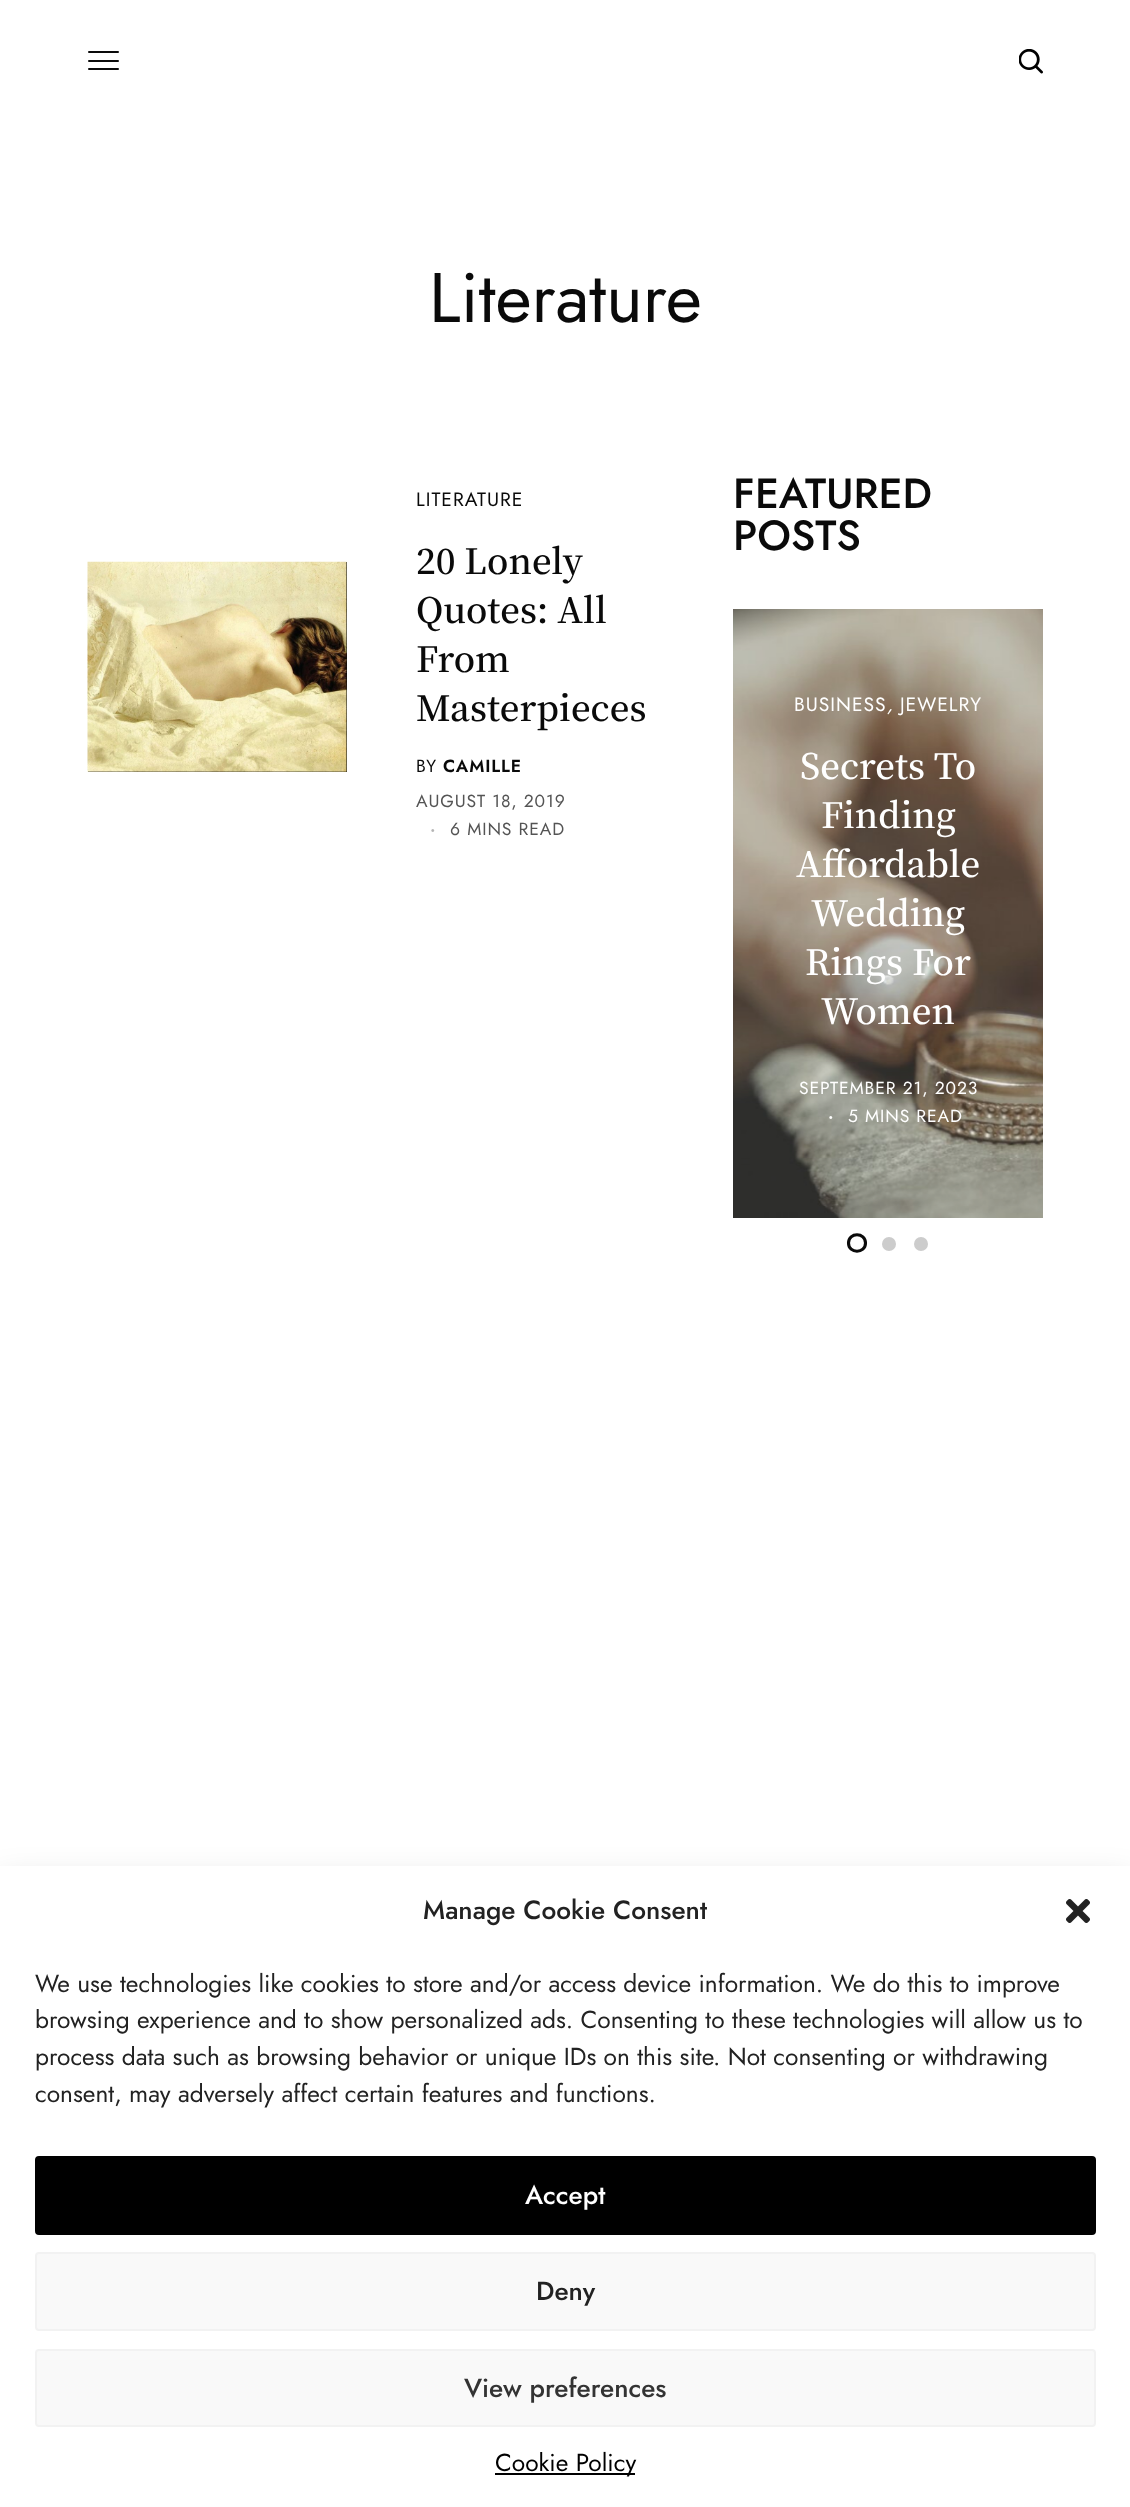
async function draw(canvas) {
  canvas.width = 1130
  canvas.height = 2507
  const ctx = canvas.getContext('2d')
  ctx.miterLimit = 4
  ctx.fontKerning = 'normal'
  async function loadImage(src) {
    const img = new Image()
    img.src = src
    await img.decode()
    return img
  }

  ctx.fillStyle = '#fff'
  ctx.fillRect(0, 0, 1130, 2507)
  ctx.fillStyle = '#0a0a0a'
  ctx.beginPath()
  ctx.roundRect(88, 51, 31, 2, 1)
  ctx.fill()
  ctx.beginPath()
  ctx.roundRect(88, 60, 31, 2, 1)
  ctx.fill()
  ctx.beginPath()
  ctx.roundRect(88, 68, 31, 2, 1)
  ctx.fill()
  ctx.drawImage(await loadImage('image0.png'), 1019, 49, 24, 25)
  ctx.font = '70px Jost'
  ctx.fillText('Literature', 429, 322)
  ctx.fillRect(88, 562, 259, 210)
  ctx.drawImage(await loadImage('image1.png'), 87, 561, 260, 211)
  ctx.letterSpacing = '1px'
  ctx.font = '19.25px Jost'
  ctx.fillText('LITERATURE', 416, 506)
  ctx.letterSpacing = '0px'
  ctx.font = '600 35px Noto Serif KR'
  ctx.fillText('20 Lonely', 416, 574)
  ctx.fillText('Quotes: All', 416, 623)
  ctx.fillText('From', 416, 672)
  ctx.fillText('Masterpieces', 416, 721)
  ctx.letterSpacing = '0.9px'
  ctx.font = '17.5px Jost'
  ctx.fillText('BY', 416, 772)
  ctx.font = '600 17.5px Jost'
  ctx.fillText('CAMILLE', 443, 772)
  ctx.font = '17.5px Jost'
  ctx.fillStyle = '#545454'
  ctx.fillText('AUGUST 18, 2019', 416, 807)
  ctx.font = '600 17.5px Jost'
  ctx.fillStyle = '#b5b5b5'
  ctx.fillText('·', 430, 835)
  ctx.font = '17.5px Jost'
  ctx.fillStyle = '#545454'
  ctx.fillText('6 MINS READ', 450, 835)
  ctx.letterSpacing = '0px'
  ctx.font = '500 42px Jost'
  ctx.fillStyle = '#0a0a0a'
  ctx.fillText('FEATURED', 733, 508)
  ctx.fillText('POSTS', 733, 550)
  ctx.drawImage(await loadImage('image2.png'), 733, 609, 310, 609)
  ctx.letterSpacing = '1px'
  ctx.font = '19.25px Jost'
  ctx.fillStyle = '#fff'
  ctx.fillText('BUSINESS', 794, 711)
  ctx.font = 'italic 19.25px Jost'
  ctx.fillText(',', 887, 711)
  ctx.font = '19.25px Jost'
  ctx.fillText('JEWELRY', 900, 711)
  ctx.letterSpacing = '0px'
  ctx.font = '600 35px Noto Serif KR'
  ctx.fillText('Secrets To', 800, 779)
  ctx.fillText('Finding', 821, 828)
  ctx.fillText('Affordable', 796, 877)
  ctx.fillText('Wedding', 811, 926)
  ctx.fillText('Rings For', 805, 975)
  ctx.fillText('Women', 821, 1024)
  ctx.letterSpacing = '0.9px'
  ctx.font = '17.5px Jost'
  ctx.fillText('SEPTEMBER 21, 2023', 799, 1094)
  ctx.font = '600 17.5px Jost'
  ctx.fillText('·', 828, 1122)
  ctx.font = '17.5px Jost'
  ctx.fillText('5 MINS READ', 848, 1122)
  ctx.beginPath()
  ctx.moveTo(848.5, 1243)
  ctx.bezierCurveTo(848.5, 1232, 865.5, 1232, 865.5, 1243)
  ctx.bezierCurveTo(865.5, 1254, 848.5, 1254, 848.5, 1243)
  ctx.strokeStyle = '#0a0a0a'
  ctx.lineWidth = 3.1
  ctx.lineJoin = 'round'
  ctx.stroke()
  ctx.fillStyle = '#ccc'
  ctx.beginPath()
  ctx.arc(889, 1244, 7, 0, 2 * Math.PI)
  ctx.fill()
  ctx.beginPath()
  ctx.arc(921, 1244, 7, 0, 2 * Math.PI)
  ctx.fill()
  ctx.fillStyle = '#00000030'
  ctx.filter = 'blur(17.5px)'
  ctx.beginPath()
  ctx.rect(0, 1883, 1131, 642)
  ctx.fill()
  ctx.filter = 'none'
  ctx.fillStyle = '#fff'
  ctx.fillRect(0, 1866, 1130, 641)
  ctx.letterSpacing = '0px'
  ctx.font = '500 26.25px Jost'
  ctx.fillStyle = '#222'
  ctx.fillText('Manage Cookie Consent', 423, 1919)
  ctx.drawImage(await loadImage('image3.png'), 1066, 1899, 24, 24)
  ctx.font = '24.5px Jost'
  ctx.fillText('We use technologies like cookies to store and/or access device information. We do this to improve', 35, 1992)
  ctx.fillText('browsing experience and to show personalized ads. Consenting to these technologies will allow us to', 35, 2028)
  ctx.fillText('process data such as browsing behavior or unique IDs on this site. Not consenting or withdrawing', 35, 2065)
  ctx.fillText('consent, may adversely affect certain features and functions.', 35, 2102)
  ctx.fillStyle = '#000'
  ctx.beginPath()
  ctx.roundRect(36, 2157, 1059, 77, 3)
  ctx.fill()
  ctx.strokeStyle = '#000'
  ctx.lineWidth = 2
  ctx.lineJoin = 'miter'
  ctx.stroke()
  ctx.font = '500 26.25px Jost'
  ctx.fillStyle = '#fff'
  ctx.fillText('Accept', 525, 2204)
  ctx.fillStyle = '#f9f9f9'
  ctx.beginPath()
  ctx.roundRect(36, 2253, 1059, 77, 3)
  ctx.fill()
  ctx.strokeStyle = '#f2f2f2'
  ctx.stroke()
  ctx.fillStyle = '#222'
  ctx.fillText('Deny', 536, 2300)
  ctx.fillStyle = '#f9f9f9'
  ctx.beginPath()
  ctx.roundRect(36, 2350, 1059, 76, 3)
  ctx.fill()
  ctx.stroke()
  ctx.fillStyle = '#333'
  ctx.fillText('View preferences', 464, 2397)
  ctx.fillStyle = '#000'
  ctx.fillRect(495, 2473, 140, 2)
  ctx.font = '24.5px Jost'
  ctx.fillText('Cookie Policy', 495, 2471)
}

draw(document.querySelector('canvas'))
